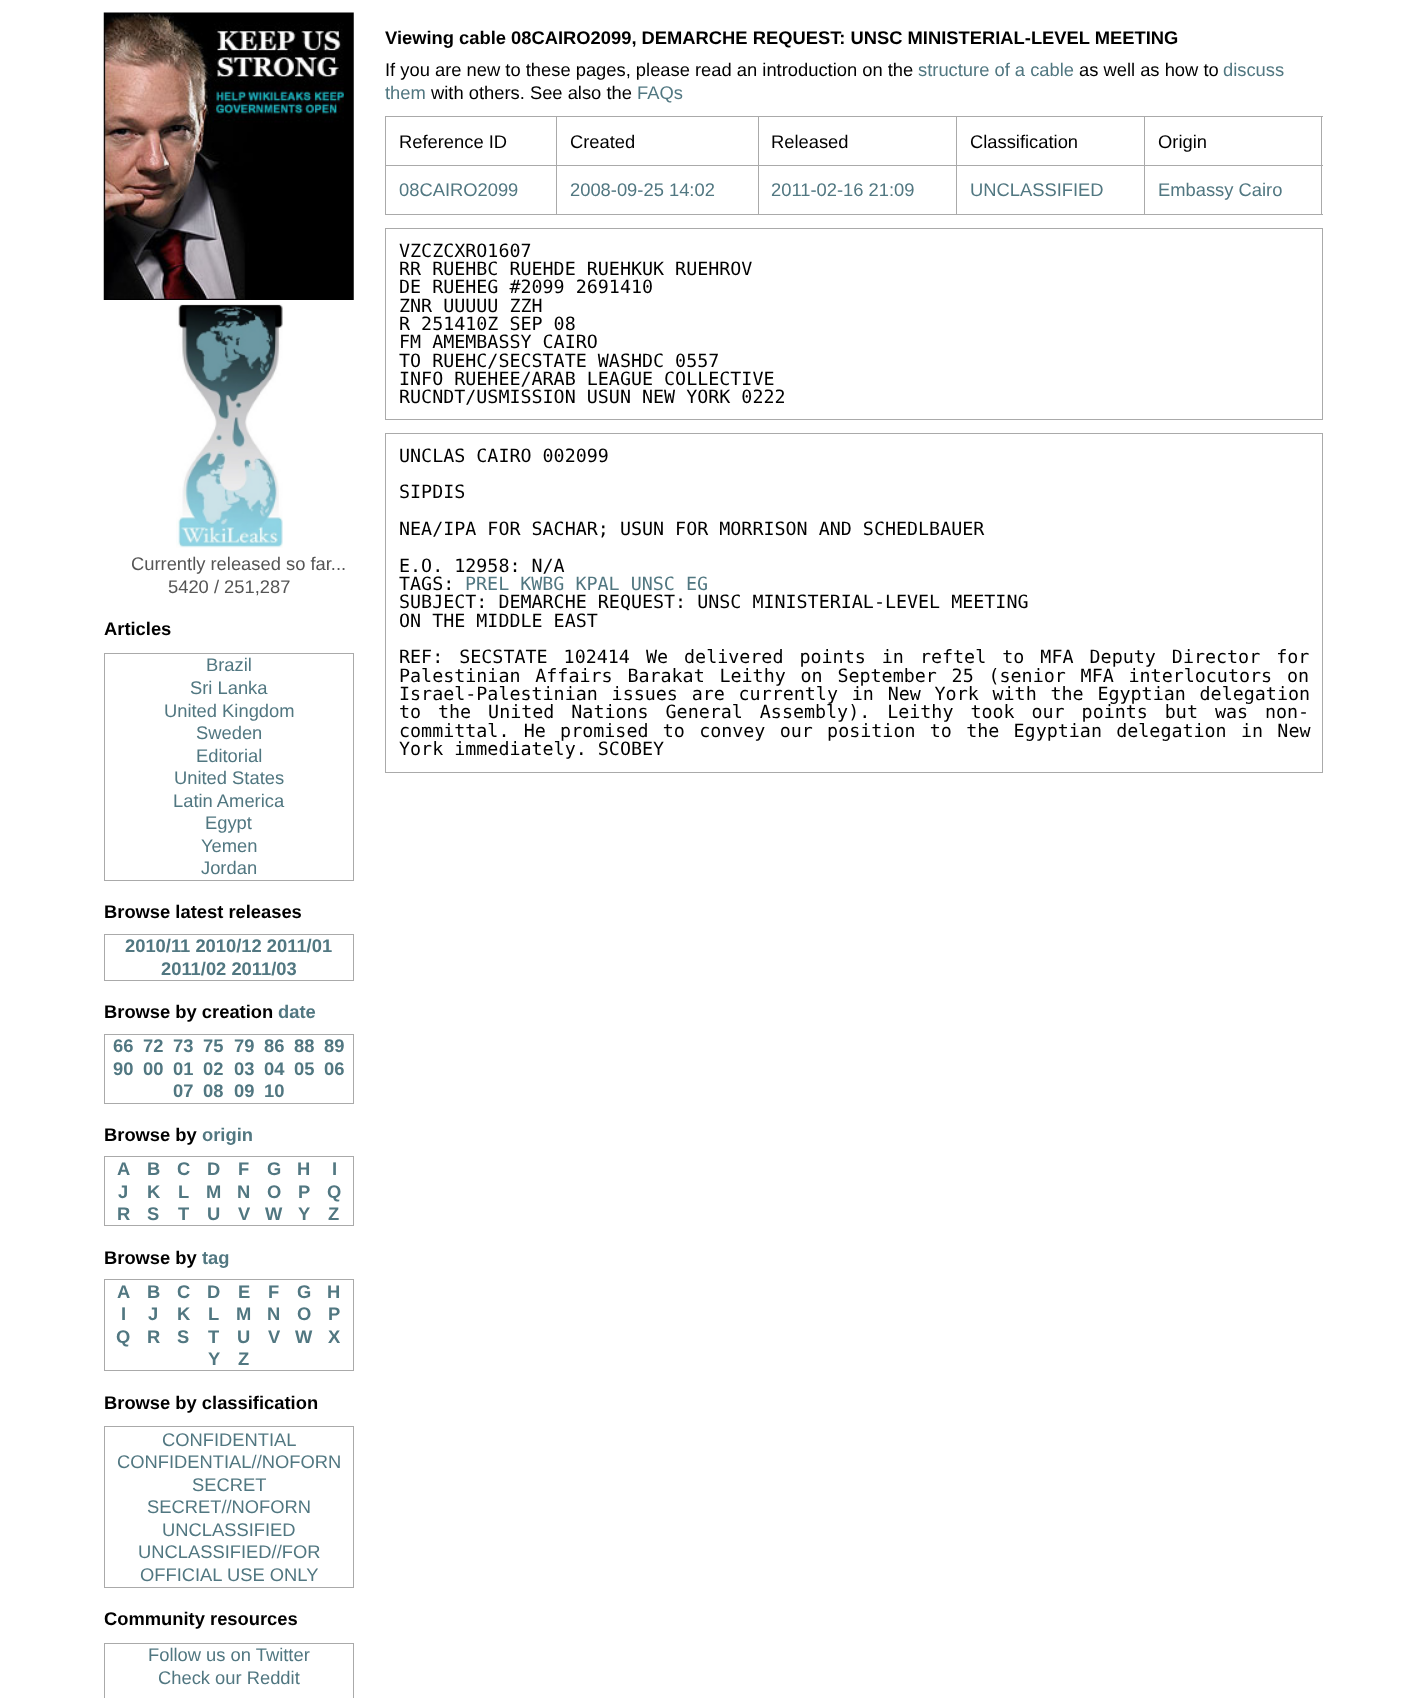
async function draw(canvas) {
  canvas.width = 1419
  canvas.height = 1698
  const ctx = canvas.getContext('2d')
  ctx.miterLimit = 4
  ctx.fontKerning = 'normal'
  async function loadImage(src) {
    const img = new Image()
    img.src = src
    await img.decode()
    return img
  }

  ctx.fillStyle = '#fff'
  ctx.fillRect(0, 0, 1419, 1698)
  ctx.font = 'bold 18.35px Liberation Sans'
  ctx.fillStyle = '#000'
  ctx.fillText('Viewing cable 08CAIRO2099, DEMARCHE REQUEST: UNSC MINISTERIAL-LEVEL MEETING', 385, 44)
  ctx.font = '18.35px Liberation Sans'
  ctx.fillText('If you are new to these pages, please read an introduction on the', 385, 76)
  ctx.fillStyle = '#517781'
  ctx.fillText('structure of a cable', 918, 76)
  ctx.fillStyle = '#000'
  ctx.fillText('as well as how to', 1079, 76)
  ctx.fillStyle = '#517781'
  ctx.fillText('discuss', 1223, 76)
  ctx.fillText('them', 385, 99)
  ctx.fillStyle = '#000'
  ctx.fillText('with others. See also the', 431, 99)
  ctx.fillStyle = '#517781'
  ctx.fillText('FAQs', 637, 99)
  ctx.fillStyle = '#aaa'
  ctx.fillRect(385, 116, 938, 1)
  ctx.fillRect(1321, 116, 1, 99)
  ctx.fillRect(385, 214, 938, 1)
  ctx.fillRect(385, 116, 1, 99)
  ctx.fillStyle = '#000'
  ctx.fillText('Reference ID', 399, 148)
  ctx.fillStyle = '#aaa'
  ctx.fillRect(1144, 165, 179, 1)
  ctx.fillRect(1144, 165, 1, 50)
  ctx.fillRect(956, 165, 189, 1)
  ctx.fillRect(956, 165, 1, 50)
  ctx.fillRect(758, 165, 200, 1)
  ctx.fillRect(758, 165, 1, 50)
  ctx.fillRect(556, 165, 203, 1)
  ctx.fillRect(556, 165, 1, 50)
  ctx.fillRect(385, 165, 173, 1)
  ctx.fillRect(556, 116, 1, 50)
  ctx.fillStyle = '#000'
  ctx.fillText('Created', 570, 148)
  ctx.fillStyle = '#aaa'
  ctx.fillRect(758, 116, 1, 50)
  ctx.fillStyle = '#000'
  ctx.fillText('Released', 771, 148)
  ctx.fillStyle = '#aaa'
  ctx.fillRect(956, 116, 1, 50)
  ctx.fillStyle = '#000'
  ctx.fillText('Classification', 970, 148)
  ctx.fillStyle = '#aaa'
  ctx.fillRect(1144, 116, 1, 50)
  ctx.fillStyle = '#000'
  ctx.fillText('Origin', 1158, 148)
  ctx.fillStyle = '#517781'
  ctx.fillText('08CAIRO2099', 399, 196)
  ctx.fillText('2008-09-25 14:02', 570, 196)
  ctx.fillText('2011-02-16 21:09', 771, 196)
  ctx.fillText('UNCLASSIFIED', 970, 196)
  ctx.fillText('Embassy Cairo', 1158, 196)
  ctx.strokeStyle = '#aaa'
  ctx.strokeRect(385.5, 228.5, 937, 191)
  ctx.font = '18.35px DejaVu Sans Mono'
  ctx.fillStyle = '#000'
  ctx.fillText('VZCZCXRO1607', 399, 257)
  ctx.fillText('RR RUEHBC RUEHDE RUEHKUK RUEHROV', 399, 275)
  ctx.fillText('DE RUEHEG #2099 2691410', 399, 293)
  ctx.fillText('ZNR UUUUU ZZH', 399, 312)
  ctx.fillText('R 251410Z SEP 08', 399, 330)
  ctx.fillText('FM AMEMBASSY CAIRO', 399, 348)
  ctx.fillText('TO RUEHC/SECSTATE WASHDC 0557', 399, 367)
  ctx.fillText('INFO RUEHEE/ARAB LEAGUE COLLECTIVE', 399, 385)
  ctx.fillText('RUCNDT/USMISSION USUN NEW YORK 0222', 399, 403)
  ctx.strokeRect(385.5, 433.5, 937, 339)
  ctx.fillText('UNCLAS CAIRO 002099', 399, 462)
  ctx.fillText('SIPDIS', 399, 498)
  ctx.fillText('NEA/IPA FOR SACHAR; USUN FOR MORRISON AND SCHEDLBAUER', 399, 535)
  ctx.fillText('E.O. 12958: N/A', 399, 572)
  ctx.fillText('TAGS:', 399, 590)
  ctx.fillStyle = '#517781'
  ctx.fillText('PREL KWBG KPAL UNSC EG', 465, 590)
  ctx.fillStyle = '#000'
  ctx.fillText('SUBJECT: DEMARCHE REQUEST: UNSC MINISTERIAL-LEVEL MEETING', 399, 608)
  ctx.fillText('ON THE MIDDLE EAST', 399, 627)
  ctx.wordSpacing = '5px'
  ctx.fillText('REF: SECSTATE 102414 We delivered points in reftel to MFA Deputy Director for', 399, 663)
  ctx.wordSpacing = '3.75px'
  ctx.fillText('Palestinian Affairs Barakat Leithy on September 25 (senior MFA interlocutors on', 399, 682)
  ctx.wordSpacing = '2.75px'
  ctx.fillText('Israel-Palestinian issues are currently in New York with the Egyptian delegation', 399, 700)
  ctx.wordSpacing = '5.9px'
  ctx.fillText('to the United Nations General Assembly). Leithy took our points but was non-', 399, 718)
  ctx.wordSpacing = '3.25px'
  ctx.fillText('committal. He promised to convey our position to the Egyptian delegation in New', 399, 737)
  ctx.wordSpacing = '0px'
  ctx.fillText('York immediately. SCOBEY', 399, 755)
  ctx.drawImage(await loadImage('image0.png'), 103, 12, 251, 288)
  ctx.drawImage(await loadImage('image1.png'), 176, 304, 107, 244)
  ctx.font = '18.35px Liberation Sans'
  ctx.fillStyle = '#555'
  ctx.fillText('Currently released so far...', 131, 570)
  ctx.fillText('5420 / 251,287', 168, 593)
  ctx.font = 'bold 18.35px Liberation Sans'
  ctx.fillStyle = '#000'
  ctx.fillText('Articles', 104, 635)
  ctx.strokeRect(104.5, 653.5, 249, 227)
  ctx.font = '18.35px Liberation Sans'
  ctx.fillStyle = '#517781'
  ctx.fillText('Brazil', 206, 671)
  ctx.fillText('Sri Lanka', 190, 694)
  ctx.fillText('United Kingdom', 164, 717)
  ctx.fillText('Sweden', 196, 739)
  ctx.fillText('Editorial', 196, 762)
  ctx.fillText('United States', 174, 784)
  ctx.fillText('Latin America', 173, 807)
  ctx.fillText('Egypt', 205, 829)
  ctx.fillText('Yemen', 201, 852)
  ctx.fillText('Jordan', 201, 874)
  ctx.font = 'bold 18.35px Liberation Sans'
  ctx.fillStyle = '#000'
  ctx.fillText('Browse latest releases', 104, 918)
  ctx.strokeRect(104.5, 934.5, 249, 46)
  ctx.fillStyle = '#517781'
  ctx.fillText('2010/11 2010/12 2011/01', 125, 952)
  ctx.fillText('2011/02 2011/03', 161, 975)
  ctx.fillStyle = '#000'
  ctx.fillText('Browse by creation', 104, 1018)
  ctx.fillStyle = '#517781'
  ctx.fillText('date', 278, 1018)
  ctx.strokeRect(104.5, 1034.5, 249, 69)
  ctx.fillText('66', 113, 1052)
  ctx.fillText('72', 143, 1052)
  ctx.fillText('73', 173, 1052)
  ctx.fillText('75', 203, 1052)
  ctx.fillText('79', 234, 1052)
  ctx.fillText('86', 264, 1052)
  ctx.fillText('88', 294, 1052)
  ctx.fillText('89', 324, 1052)
  ctx.fillText('90', 113, 1075)
  ctx.fillText('00', 143, 1075)
  ctx.fillText('01', 173, 1075)
  ctx.fillText('02', 203, 1075)
  ctx.fillText('03', 234, 1075)
  ctx.fillText('04', 264, 1075)
  ctx.fillText('05', 294, 1075)
  ctx.fillText('06', 324, 1075)
  ctx.fillText('07', 173, 1097)
  ctx.fillText('08', 203, 1097)
  ctx.fillText('09', 234, 1097)
  ctx.fillText('10', 264, 1097)
  ctx.fillStyle = '#000'
  ctx.fillText('Browse by', 104, 1141)
  ctx.fillStyle = '#517781'
  ctx.fillText('origin', 202, 1141)
  ctx.strokeRect(104.5, 1156.5, 249, 69)
  ctx.fillText('A', 117, 1175)
  ctx.fillText('B', 147, 1175)
  ctx.fillText('C', 177, 1175)
  ctx.fillText('D', 207, 1175)
  ctx.fillText('F', 238, 1175)
  ctx.fillText('G', 267, 1175)
  ctx.fillText('H', 297, 1175)
  ctx.fillText('I', 332, 1175)
  ctx.fillText('J', 118, 1198)
  ctx.fillText('K', 147, 1198)
  ctx.fillText('L', 178, 1198)
  ctx.fillText('M', 206, 1198)
  ctx.fillText('N', 237, 1198)
  ctx.fillText('O', 267, 1198)
  ctx.fillText('P', 298, 1198)
  ctx.fillText('Q', 327, 1198)
  ctx.fillText('R', 117, 1220)
  ctx.fillText('S', 147, 1220)
  ctx.fillText('T', 178, 1220)
  ctx.fillText('U', 207, 1220)
  ctx.fillText('V', 238, 1220)
  ctx.fillText('W', 265, 1220)
  ctx.fillText('Y', 298, 1220)
  ctx.fillText('Z', 328, 1220)
  ctx.fillStyle = '#000'
  ctx.fillText('Browse by', 104, 1264)
  ctx.fillStyle = '#517781'
  ctx.fillText('tag', 202, 1264)
  ctx.strokeRect(104.5, 1279.5, 249, 91)
  ctx.fillText('A', 117, 1298)
  ctx.fillText('B', 147, 1298)
  ctx.fillText('C', 177, 1298)
  ctx.fillText('D', 207, 1298)
  ctx.fillText('E', 238, 1298)
  ctx.fillText('F', 268, 1298)
  ctx.fillText('G', 297, 1298)
  ctx.fillText('H', 327, 1298)
  ctx.fillText('I', 121, 1320)
  ctx.fillText('J', 148, 1320)
  ctx.fillText('K', 177, 1320)
  ctx.fillText('L', 208, 1320)
  ctx.fillText('M', 236, 1320)
  ctx.fillText('N', 267, 1320)
  ctx.fillText('O', 297, 1320)
  ctx.fillText('P', 328, 1320)
  ctx.fillText('Q', 116, 1343)
  ctx.fillText('R', 147, 1343)
  ctx.fillText('S', 177, 1343)
  ctx.fillText('T', 208, 1343)
  ctx.fillText('U', 237, 1343)
  ctx.fillText('V', 268, 1343)
  ctx.fillText('W', 295, 1343)
  ctx.fillText('X', 328, 1343)
  ctx.fillText('Y', 208, 1365)
  ctx.fillText('Z', 238, 1365)
  ctx.fillStyle = '#000'
  ctx.fillText('Browse by classification', 104, 1409)
  ctx.strokeRect(104.5, 1426.5, 249, 161)
  ctx.font = '18.35px Liberation Sans'
  ctx.fillStyle = '#517781'
  ctx.fillText('CONFIDENTIAL', 162, 1446)
  ctx.fillText('CONFIDENTIAL//NOFORN', 117, 1468)
  ctx.fillText('SECRET', 192, 1491)
  ctx.fillText('SECRET//NOFORN', 147, 1513)
  ctx.fillText('UNCLASSIFIED', 162, 1536)
  ctx.fillText('UNCLASSIFIED//FOR', 138, 1558)
  ctx.fillText('OFFICIAL USE ONLY', 140, 1581)
  ctx.font = 'bold 18.35px Liberation Sans'
  ctx.fillStyle = '#000'
  ctx.fillText('Community resources', 104, 1625)
  ctx.strokeRect(104.5, 1643.5, 249, 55)
  ctx.font = '18.35px Liberation Sans'
  ctx.fillStyle = '#517781'
  ctx.fillText('Follow us on Twitter', 148, 1661)
  ctx.fillText('Check our Reddit', 158, 1684)
}

draw(document.querySelector('canvas'))
